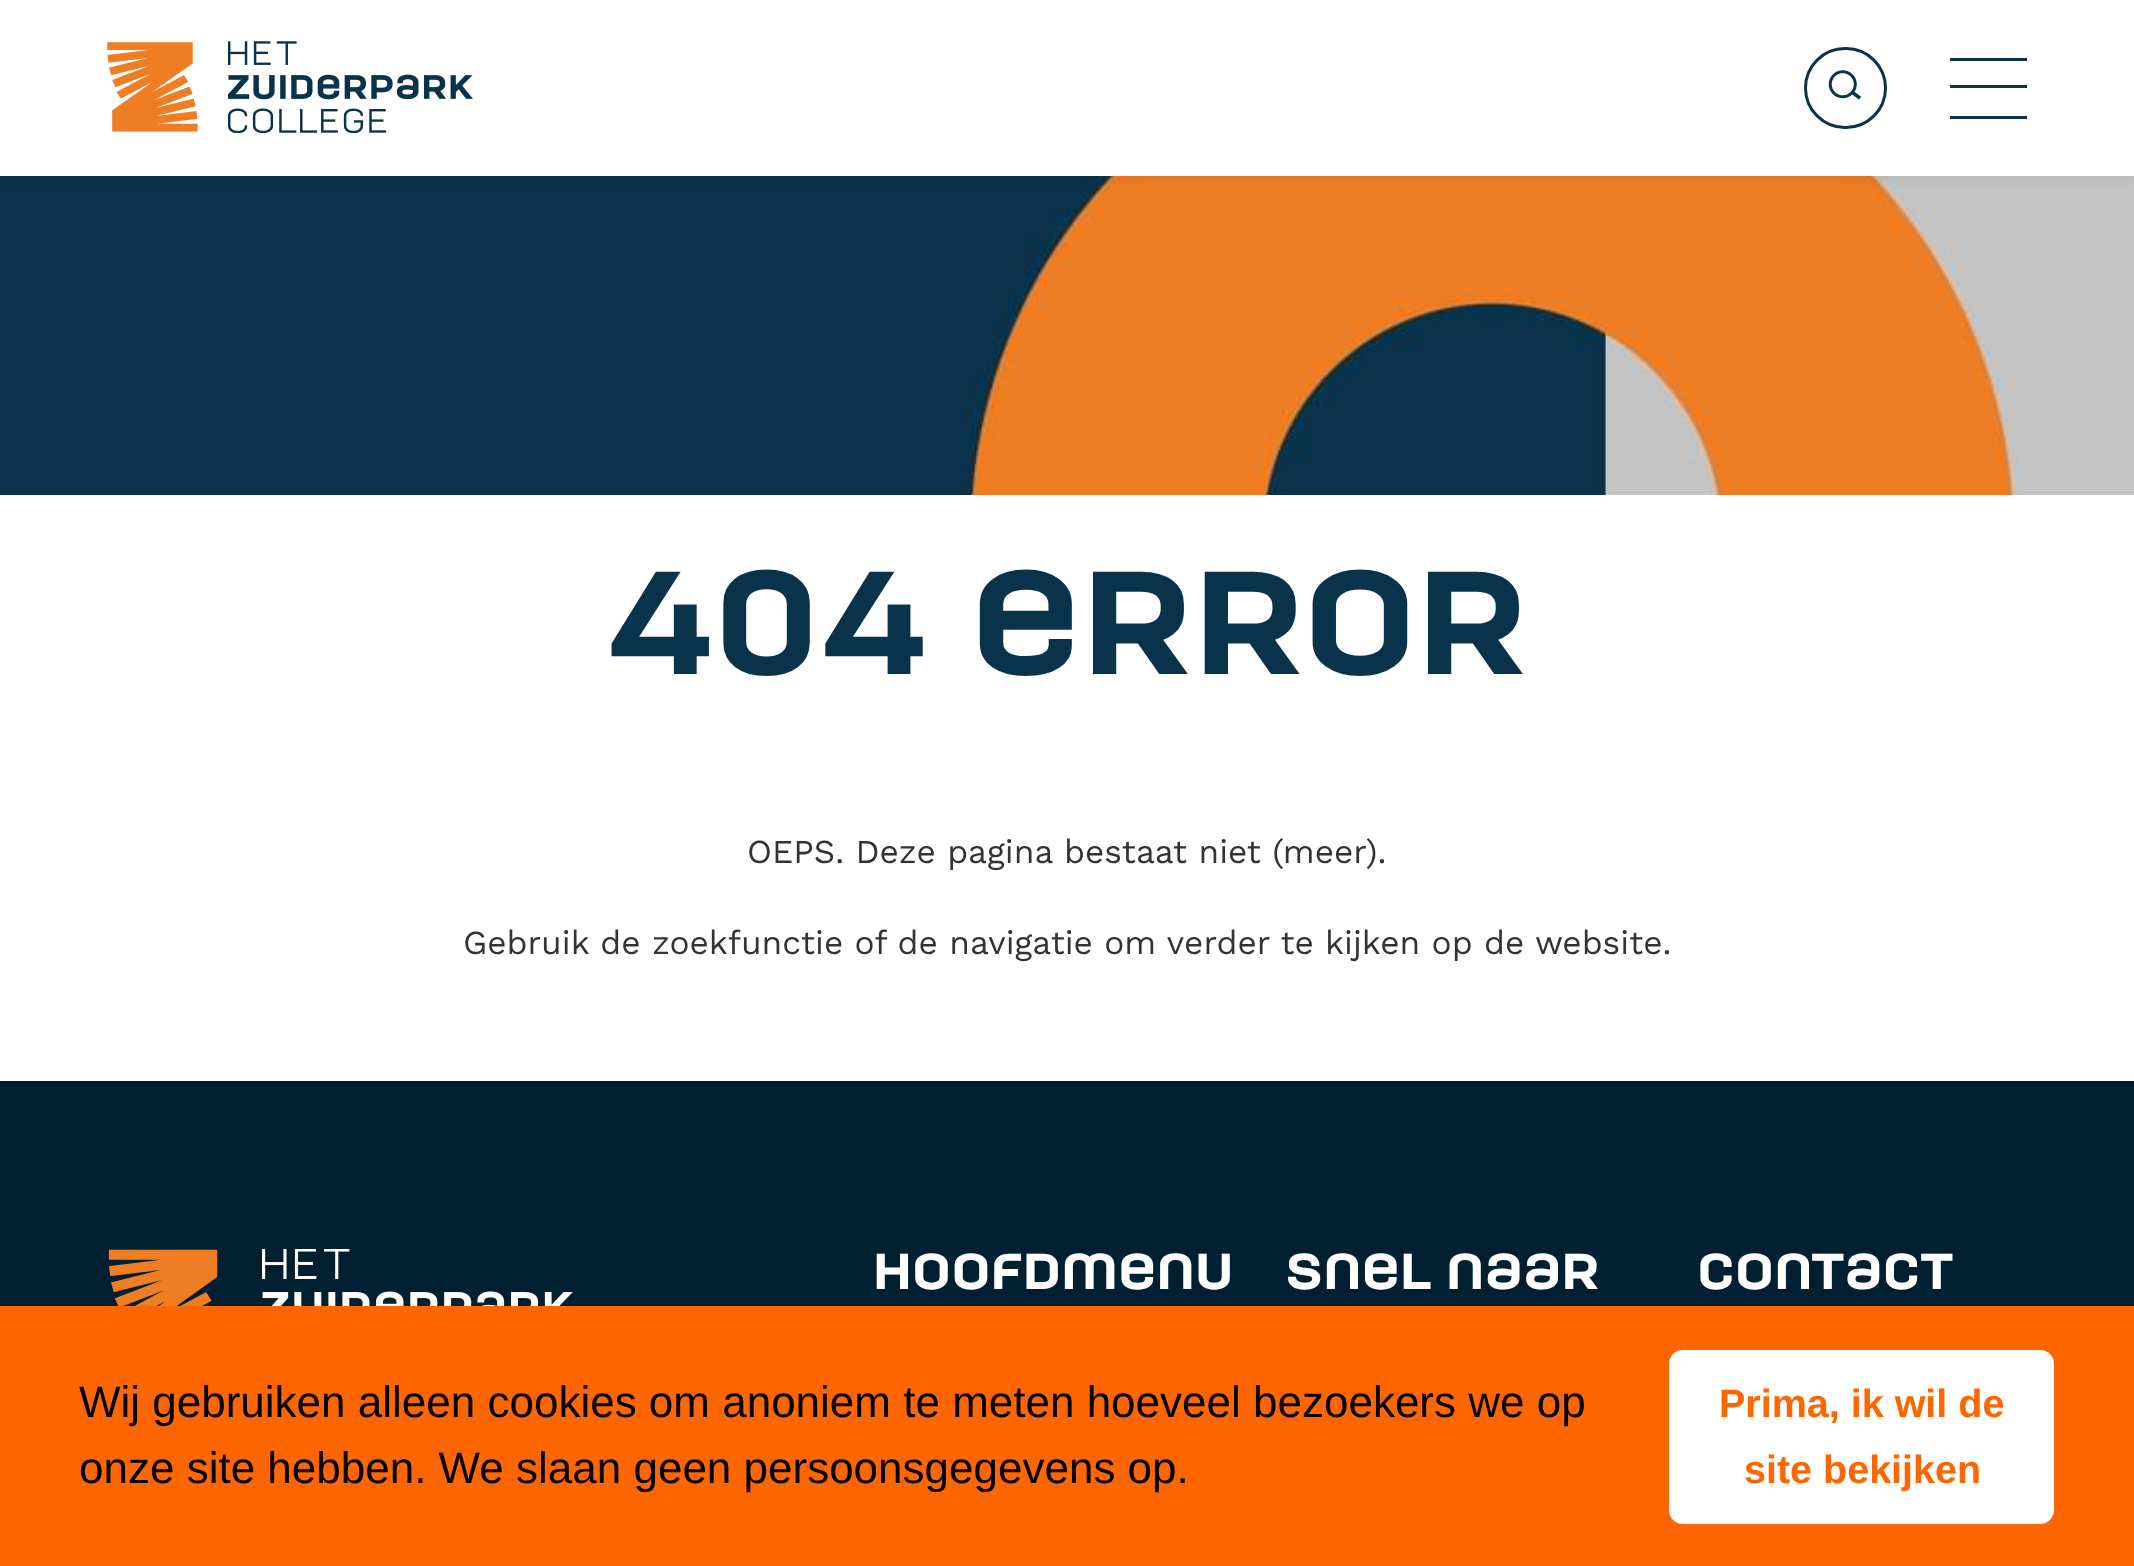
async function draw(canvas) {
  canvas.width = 2134
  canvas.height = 1566
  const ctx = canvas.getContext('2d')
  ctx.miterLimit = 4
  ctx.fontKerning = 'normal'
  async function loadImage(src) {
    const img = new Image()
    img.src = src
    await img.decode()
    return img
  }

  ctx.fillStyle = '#fff'
  ctx.fillRect(0, 0, 2134, 1566)
  ctx.drawImage(await loadImage('image2.png'), 0, 176, 2134, 319)
  ctx.fillStyle = '#0000001a'
  ctx.filter = 'blur(7.5px)'
  ctx.beginPath()
  ctx.rect(0, 0, 2134, 176)
  ctx.fill()
  ctx.filter = 'none'
  ctx.fillStyle = '#fff'
  ctx.fillRect(0, 0, 2134, 176)
  ctx.drawImage(await loadImage('image0.png'), 107, 41, 366, 92)
  ctx.beginPath()
  ctx.roundRect(1805.5, 48.5, 80, 79, 39.5)
  ctx.strokeStyle = '#09334a'
  ctx.lineWidth = 3
  ctx.stroke()
  ctx.drawImage(await loadImage('image1.png'), 1828, 70, 34, 30)
  ctx.fillStyle = '#09334a'
  ctx.fillRect(1950, 58, 77, 3)
  ctx.fillRect(1950, 85, 77, 3)
  ctx.fillRect(1950, 116, 77, 3)
  ctx.font = '900 146.25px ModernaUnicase'
  ctx.fillText('404 error', 606, 674)
  ctx.font = '33.45px Work Sans'
  ctx.fillStyle = '#333'
  ctx.fillText('OEPS. Deze pagina bestaat niet (meer).', 747, 863)
  ctx.fillText('Gebruik de zoekfunctie of de navigatie om verder te kijken op de website.', 463, 954)
  ctx.fillStyle = '#001f30'
  ctx.fillRect(0, 1081, 2134, 225)
  ctx.drawImage(await loadImage('image3.png'), 108, 1249, 465, 57)
  ctx.font = '900 50.25px ModernaUnicase'
  ctx.fillStyle = '#fff'
  ctx.fillText('Hoofdmenu', 873, 1289)
  ctx.fillText('Snel naar', 1285, 1289)
  ctx.fillText('Contact', 1697, 1289)
  ctx.fillStyle = '#f60'
  ctx.fillRect(0, 1306, 2134, 260)
  ctx.font = '44px Liberation Sans'
  ctx.fillStyle = '#000'
  ctx.fillText('Wij gebruiken alleen cookies om anoniem te meten hoeveel bezoekers we op', 79, 1417)
  ctx.fillText('onze site hebben. We slaan geen persoonsgegevens op.', 79, 1483)
  ctx.fillStyle = '#fff'
  ctx.beginPath()
  ctx.roundRect(1669, 1350, 385, 174, 14)
  ctx.fill()
  ctx.font = 'bold 39.5px Liberation Sans'
  ctx.fillStyle = '#f60'
  ctx.fillText('Prima, ik wil de', 1719, 1417)
  ctx.fillText('site bekijken', 1744, 1483)
}

draw(document.querySelector('canvas'))
